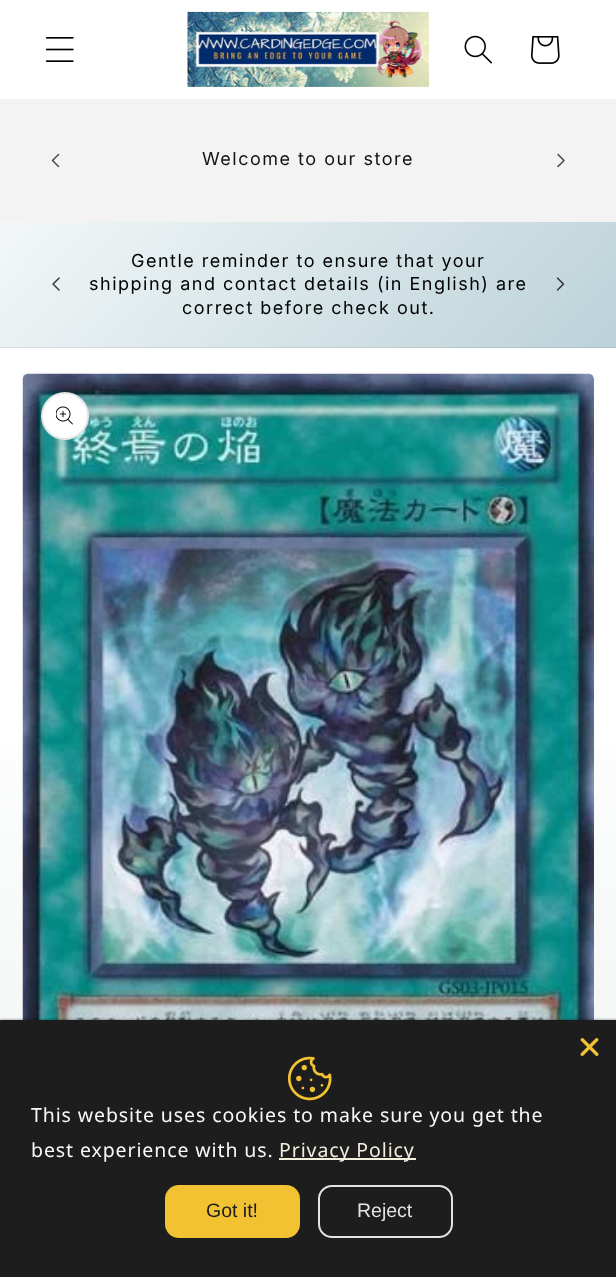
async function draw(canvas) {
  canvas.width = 616
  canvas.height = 1277
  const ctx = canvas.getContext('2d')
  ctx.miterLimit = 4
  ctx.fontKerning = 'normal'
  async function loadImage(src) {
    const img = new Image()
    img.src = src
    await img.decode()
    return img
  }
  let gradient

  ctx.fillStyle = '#fff'
  ctx.fillRect(0, 0, 616, 1277)
  ctx.drawImage(await loadImage('image0.png'), 45, 37, 29, 25)
  ctx.drawImage(await loadImage('image1.png'), 187, 11, 242, 76)
  ctx.drawImage(await loadImage('image2.png'), 464, 35, 28, 29)
  ctx.drawImage(await loadImage('image3.png'), 531, 36, 29, 28)
  ctx.fillStyle = '#f3f3f3'
  ctx.fillRect(0, 99, 616, 123)
  ctx.drawImage(await loadImage('image4.png'), 51, 153, 9, 15)
  ctx.letterSpacing = '1.5px'
  ctx.font = '18px Inter'
  ctx.fillStyle = '#121212'
  ctx.fillText('Welcome to our store', 202, 165)
  ctx.drawImage(await loadImage('image5.png'), 557, 153, 8, 15)
  gradient = ctx.createLinearGradient(-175, 188, 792, 1090)
  gradient.addColorStop(0.03, '#fff')
  gradient.addColorStop(0.99, '#7aa7b3')
  ctx.fillStyle = gradient
  ctx.fillRect(0, 222, 616, 125)
  gradient = ctx.createLinearGradient(-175, 188, 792, 1090)
  gradient.addColorStop(0.03, '#ebebeb')
  gradient.addColorStop(0.99, '#709aa5')
  ctx.fillStyle = gradient
  ctx.fillRect(0, 347, 616, 1)
  ctx.drawImage(await loadImage('image6.png'), 52, 277, 8, 14)
  ctx.fillStyle = '#000'
  ctx.fillText('Gentle reminder to ensure that your', 131, 267)
  ctx.fillText('shipping and contact details (in English) are', 89, 290)
  ctx.fillText('correct before check out.', 182, 314)
  ctx.drawImage(await loadImage('image7.png'), 556, 277, 9, 14)
  gradient = ctx.createLinearGradient(308, 0, 308, 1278)
  gradient.addColorStop(0.52, '#fff')
  gradient.addColorStop(1, '#edf2f1')
  ctx.fillStyle = gradient
  ctx.fillRect(0, 750, 616, 270)
  ctx.drawImage(await loadImage('image8.png'), 22, 373, 572, 647)
  ctx.fillStyle = '#fff'
  ctx.beginPath()
  ctx.arc(65, 416, 24, 0, 2 * Math.PI)
  ctx.fill()
  ctx.beginPath()
  ctx.arc(65, 416, 23, 0, 2 * Math.PI)
  ctx.strokeStyle = '#0000001a'
  ctx.lineWidth = 2
  ctx.stroke()
  ctx.drawImage(await loadImage('image9.png'), 56, 406, 17, 19)
  ctx.fillStyle = '#00000080'
  ctx.filter = 'blur(1.5px)'
  ctx.beginPath()
  ctx.rect(0, 1020, 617, 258)
  ctx.fill()
  ctx.filter = 'none'
  ctx.fillStyle = '#1d1d1d'
  ctx.fillRect(0, 1020, 616, 257)
  ctx.drawImage(await loadImage('image10.png'), 580, 1038, 19, 18)
  ctx.drawImage(await loadImage('image11.png'), 287, 1056, 45, 45)
  ctx.letterSpacing = '0.9px'
  ctx.font = '19.5px Noto Sans'
  ctx.fillStyle = '#f8f8f8'
  ctx.fillText('This website uses cookies to make sure you get the', 31, 1122)
  ctx.fillText('best experience with us.', 31, 1157)
  ctx.fillStyle = '#f2efdd'
  ctx.fillRect(279, 1158, 137, 2)
  ctx.fillText('Privacy Policy', 279, 1157)
  ctx.fillStyle = '#f2c232'
  ctx.beginPath()
  ctx.roundRect(165, 1185, 135, 53, 14)
  ctx.fill()
  ctx.letterSpacing = '0px'
  ctx.font = '19.5px Liberation Sans'
  ctx.fillStyle = '#1d1d1d'
  ctx.fillText('Got it!', 206, 1217)
  ctx.beginPath()
  ctx.roundRect(319, 1186, 133, 51, 13)
  ctx.strokeStyle = '#e3e3e3'
  ctx.stroke()
  ctx.fillStyle = '#e3e3e3'
  ctx.fillText('Reject', 357, 1217)
}

draw(document.querySelector('canvas'))
